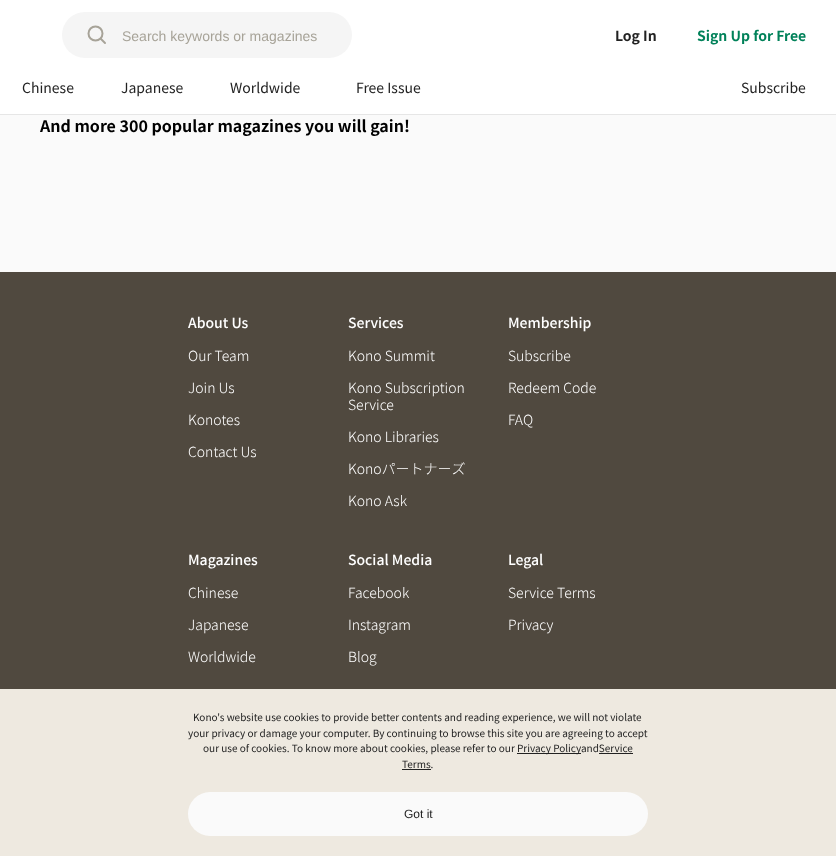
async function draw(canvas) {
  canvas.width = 836
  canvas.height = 856
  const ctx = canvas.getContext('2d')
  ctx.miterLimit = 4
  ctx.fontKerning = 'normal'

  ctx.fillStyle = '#fafafa'
  ctx.fillRect(0, 0, 836, 856)
  ctx.fillStyle = '#e6e6e6'
  ctx.fillRect(0, 114, 836, 1)
  ctx.fillStyle = '#fff'
  ctx.fillRect(0, 0, 836, 114)
  ctx.fillStyle = '#f5f5f5'
  ctx.beginPath()
  ctx.roundRect(62, 12, 50, 46, [23, 0, 0, 23])
  ctx.fill()
  ctx.beginPath()
  ctx.arc(95.5, 33.5, 7, 0, 2 * Math.PI)
  ctx.strokeStyle = '#a7a398'
  ctx.lineWidth = 2
  ctx.stroke()
  ctx.beginPath()
  ctx.moveTo(101, 39)
  ctx.lineTo(105, 43)
  ctx.lineCap = 'round'
  ctx.stroke()
  ctx.beginPath()
  ctx.roundRect(112, 12, 240, 46, [0, 23, 23, 0])
  ctx.fill()
  ctx.font = '14px Liberation Sans'
  ctx.fillStyle = '#a7a398'
  ctx.fillText('Search keywords or magazines', 122, 41)
  ctx.font = 'bold 14px Noto Sans TC'
  ctx.fillStyle = '#222'
  ctx.fillText('Log In', 615, 41)
  ctx.fillStyle = '#008159'
  ctx.fillText('Sign Up for Free', 697, 41)
  ctx.font = '14px Noto Sans TC'
  ctx.fillStyle = '#222'
  ctx.fillText('Chinese', 22, 93)
  ctx.fillText('Japanese', 121, 93)
  ctx.fillText('Worldwide', 230, 93)
  ctx.fillText('Free Issue', 356, 93)
  ctx.fillText('Subscribe', 741, 93)
  ctx.font = 'bold 16px Noto Sans TC'
  ctx.fillStyle = '#000'
  ctx.fillText('And more 300 popular magazines you will gain!', 40, 132)
  ctx.fillStyle = '#50493f'
  ctx.fillRect(0, 272, 836, 417)
  ctx.font = '500 14px Noto Sans TC'
  ctx.fillStyle = '#fff'
  ctx.fillText('About Us', 188, 328)
  ctx.font = '300 14px Noto Sans TC'
  ctx.fillText('Our Team', 188, 361)
  ctx.fillText('Join Us', 188, 393)
  ctx.fillText('Konotes', 188, 425)
  ctx.fillText('Contact Us', 188, 457)
  ctx.font = '500 14px Noto Sans TC'
  ctx.fillText('Services', 348, 328)
  ctx.font = '300 14px Noto Sans TC'
  ctx.fillText('Kono Summit', 348, 361)
  ctx.fillText('Kono Subscription', 348, 393)
  ctx.fillText('Service', 348, 410)
  ctx.fillText('Kono Libraries', 348, 442)
  ctx.fillText('Konoパートナーズ', 348, 474)
  ctx.fillText('Kono Ask', 348, 506)
  ctx.font = '500 14px Noto Sans TC'
  ctx.fillText('Membership', 508, 328)
  ctx.font = '300 14px Noto Sans TC'
  ctx.fillText('Subscribe', 508, 361)
  ctx.fillText('Redeem Code', 508, 393)
  ctx.fillText('FAQ', 508, 425)
  ctx.font = '500 14px Noto Sans TC'
  ctx.fillText('Magazines', 188, 565)
  ctx.font = '300 14px Noto Sans TC'
  ctx.fillText('Chinese', 188, 598)
  ctx.fillText('Japanese', 188, 630)
  ctx.fillText('Worldwide', 188, 662)
  ctx.font = '500 14px Noto Sans TC'
  ctx.fillText('Social Media', 348, 565)
  ctx.font = '300 14px Noto Sans TC'
  ctx.fillText('Facebook', 348, 598)
  ctx.fillText('Instagram', 348, 630)
  ctx.fillText('Blog', 348, 662)
  ctx.font = '500 14px Noto Sans TC'
  ctx.fillText('Legal', 508, 565)
  ctx.font = '300 14px Noto Sans TC'
  ctx.fillText('Service Terms', 508, 598)
  ctx.fillText('Privacy', 508, 630)
  ctx.fillStyle = '#eee9e0'
  ctx.fillRect(0, 689, 836, 167)
  ctx.font = '10px Noto Sans TC'
  ctx.fillStyle = '#222'
  ctx.fillText('Kono\'s website use cookies to provide better contents and reading experience, we will not violate', 193, 721)
  ctx.fillText('your privacy or damage your computer. By continuing to browse this site you are agreeing to accept', 188, 737)
  ctx.fillText('our use of cookies. To know more about cookies, please refer to our', 203, 752)
  ctx.fillRect(517, 753, 64, 1)
  ctx.fillText('Privacy PolicyandService', 517, 752)
  ctx.fillText('Terms.', 402, 768)
  ctx.fillRect(599, 753, 34, 1)
  ctx.fillRect(402, 769, 29, 1)
  ctx.fillStyle = '#fafafa'
  ctx.beginPath()
  ctx.roundRect(188, 792, 460, 44, 22)
  ctx.fill()
  ctx.font = '12px Liberation Sans'
  ctx.fillStyle = '#222'
  ctx.fillText('Got it', 404, 818)
}

draw(document.querySelector('canvas'))
